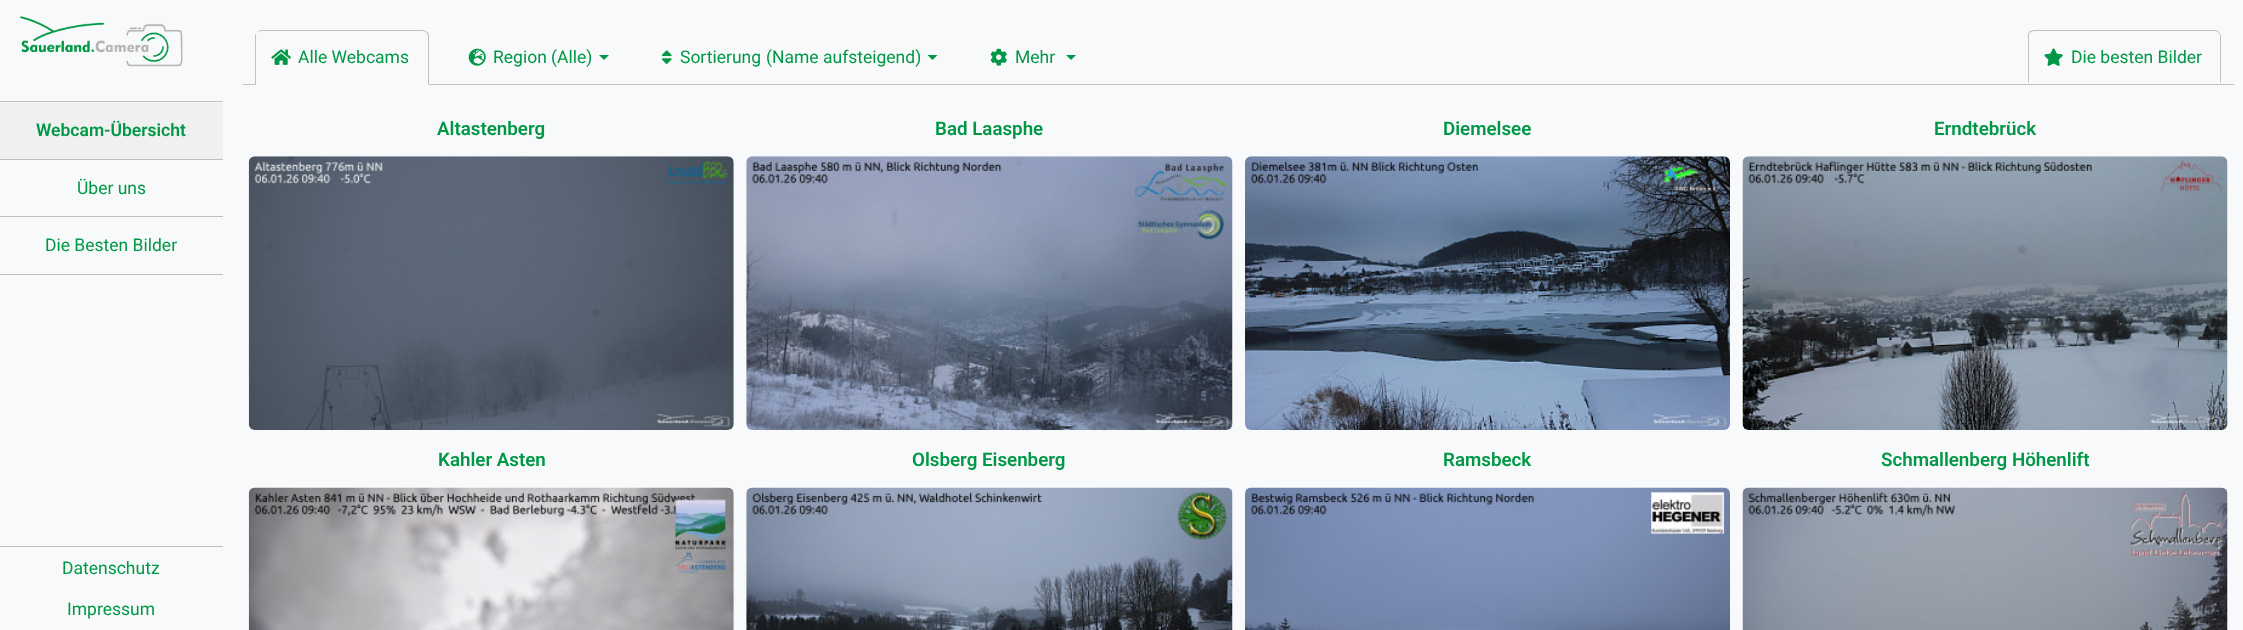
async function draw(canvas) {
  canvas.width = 2243
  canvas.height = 630
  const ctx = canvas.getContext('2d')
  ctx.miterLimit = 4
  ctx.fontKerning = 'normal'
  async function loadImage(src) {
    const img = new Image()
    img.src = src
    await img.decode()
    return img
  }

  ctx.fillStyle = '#f8f9fa'
  ctx.fillRect(0, 0, 2243, 630)
  ctx.drawImage(await loadImage('image0.png'), 20, 16, 163, 51)
  ctx.fillStyle = '#c0c0c0'
  ctx.fillRect(0, 101, 223, 1)
  ctx.fillStyle = '#f0f0f0'
  ctx.fillRect(0, 103, 223, 56)
  ctx.font = '600 17.5px Roboto'
  ctx.fillStyle = '#009846'
  ctx.fillText('Webcam-Übersicht', 36, 136)
  ctx.fillStyle = '#c0c0c0'
  ctx.fillRect(0, 159, 223, 1)
  ctx.font = '17.5px Roboto'
  ctx.fillStyle = '#009846'
  ctx.fillText('Über uns', 77, 194)
  ctx.fillStyle = '#c0c0c0'
  ctx.fillRect(0, 216, 223, 1)
  ctx.fillStyle = '#009846'
  ctx.fillText('Die Besten Bilder', 45, 251)
  ctx.fillStyle = '#c0c0c0'
  ctx.fillRect(0, 274, 223, 1)
  ctx.fillRect(0, 546, 223, 1)
  ctx.fillStyle = '#009846'
  ctx.fillText('Datenschutz', 62, 574)
  ctx.fillText('Impressum', 67, 615)
  ctx.fillStyle = '#c0c0c0'
  ctx.fillRect(243, 84, 1991, 1)
  ctx.beginPath()
  ctx.moveTo(261, 30)
  ctx.bezierCurveTo(260, 30, 258, 31, 257, 32)
  ctx.bezierCurveTo(258, 32, 260, 31, 261, 31)
  ctx.lineTo(422, 31)
  ctx.bezierCurveTo(424, 31, 425, 32, 426, 32)
  ctx.lineTo(427, 32)
  ctx.bezierCurveTo(426, 31, 424, 30, 422, 30)
  ctx.closePath()
  ctx.fill()
  ctx.beginPath()
  ctx.moveTo(429, 34)
  ctx.lineTo(429, 85)
  ctx.lineTo(428, 84)
  ctx.lineTo(428, 35)
  ctx.lineTo(426, 32)
  ctx.lineTo(427, 32)
  ctx.closePath()
  ctx.fill()
  ctx.fillStyle = '#f8f9fa'
  ctx.beginPath()
  ctx.moveTo(429, 85)
  ctx.lineTo(428, 84)
  ctx.lineTo(256, 84)
  ctx.lineTo(255, 85)
  ctx.closePath()
  ctx.fill()
  ctx.fillStyle = '#c0c0c0'
  ctx.beginPath()
  ctx.moveTo(255, 85)
  ctx.lineTo(256, 84)
  ctx.lineTo(256, 36)
  ctx.bezierCurveTo(256, 34, 256, 33, 257, 32)
  ctx.bezierCurveTo(256, 33, 255, 34, 255, 36)
  ctx.closePath()
  ctx.fill()
  ctx.drawImage(await loadImage('image1.png'), 271, 49, 20, 16)
  ctx.fillStyle = '#009846'
  ctx.fillText('Alle Webcams', 298, 63)
  ctx.drawImage(await loadImage('image2.png'), 468, 48, 18, 18)
  ctx.fillText('Region', 493, 63)
  ctx.fillText('(Alle)', 551, 63)
  ctx.beginPath()
  ctx.moveTo(599, 55)
  ctx.lineTo(609, 55)
  ctx.lineTo(604, 60)
  ctx.closePath()
  ctx.fill()
  ctx.drawImage(await loadImage('image3.png'), 661, 50, 11, 14)
  ctx.fillText('Sortierung', 680, 63)
  ctx.fillText('(Name aufsteigend)', 766, 63)
  ctx.beginPath()
  ctx.moveTo(927.5, 55)
  ctx.lineTo(937.5, 55)
  ctx.lineTo(932.5, 60)
  ctx.closePath()
  ctx.fill()
  ctx.drawImage(await loadImage('image4.png'), 990, 48, 17, 18)
  ctx.fillText('Mehr', 1015, 63)
  ctx.beginPath()
  ctx.moveTo(1066, 55)
  ctx.lineTo(1076, 55)
  ctx.lineTo(1071, 60)
  ctx.closePath()
  ctx.fill()
  ctx.fillStyle = '#c0c0c0'
  ctx.beginPath()
  ctx.moveTo(2034, 30)
  ctx.bezierCurveTo(2032, 30, 2030, 31, 2029, 32)
  ctx.lineTo(2030, 33)
  ctx.bezierCurveTo(2031, 32, 2033, 31, 2034, 31)
  ctx.lineTo(2216, 31)
  ctx.lineTo(2219, 33)
  ctx.lineTo(2219, 32)
  ctx.bezierCurveTo(2218, 31, 2217, 30, 2215, 30)
  ctx.closePath()
  ctx.fill()
  ctx.beginPath()
  ctx.moveTo(2219, 32)
  ctx.bezierCurveTo(2220, 33, 2221, 35, 2221, 36)
  ctx.lineTo(2221, 84)
  ctx.lineTo(2220, 82)
  ctx.lineTo(2220, 36)
  ctx.bezierCurveTo(2220, 35, 2220, 33, 2219, 33)
  ctx.closePath()
  ctx.fill()
  ctx.fillStyle = '#f8f9fa'
  ctx.beginPath()
  ctx.moveTo(2028, 84)
  ctx.lineTo(2029, 82)
  ctx.lineTo(2220, 82)
  ctx.lineTo(2221, 84)
  ctx.closePath()
  ctx.fill()
  ctx.fillStyle = '#c0c0c0'
  ctx.beginPath()
  ctx.moveTo(2029, 32)
  ctx.bezierCurveTo(2028, 33, 2028, 35, 2028, 36)
  ctx.lineTo(2028, 83)
  ctx.lineTo(2029, 82)
  ctx.lineTo(2029, 36)
  ctx.bezierCurveTo(2029, 35, 2029, 33, 2030, 33)
  ctx.closePath()
  ctx.fill()
  ctx.drawImage(await loadImage('image5.png'), 2044, 48, 19, 18)
  ctx.fillStyle = '#009846'
  ctx.fillText('Die besten Bilder', 2071, 63)
  ctx.font = '600 18.75px Roboto'
  ctx.fillText('Altastenberg', 437, 135)
  ctx.drawImage(await loadImage('image6.png'), 248, 156, 486, 274)
  ctx.fillText('Bad Laasphe', 935, 135)
  ctx.drawImage(await loadImage('image7.png'), 746, 156, 487, 274)
  ctx.fillText('Diemelsee', 1443, 135)
  ctx.drawImage(await loadImage('image8.png'), 1245, 156, 485, 274)
  ctx.fillText('Erndtebrück', 1934, 135)
  ctx.drawImage(await loadImage('image9.png'), 1742, 156, 486, 274)
  ctx.fillText('Kahler Asten', 438, 466)
  ctx.drawImage(await loadImage('image10.png'), 248, 487, 486, 143)
  ctx.fillText('Olsberg Eisenberg', 912, 466)
  ctx.drawImage(await loadImage('image11.png'), 746, 487, 487, 143)
  ctx.fillText('Ramsbeck', 1443, 466)
  ctx.drawImage(await loadImage('image12.png'), 1245, 487, 485, 143)
  ctx.fillText('Schmallenberg Höhenlift', 1881, 466)
  ctx.drawImage(await loadImage('image13.png'), 1742, 487, 486, 143)
}

draw(document.querySelector('canvas'))
